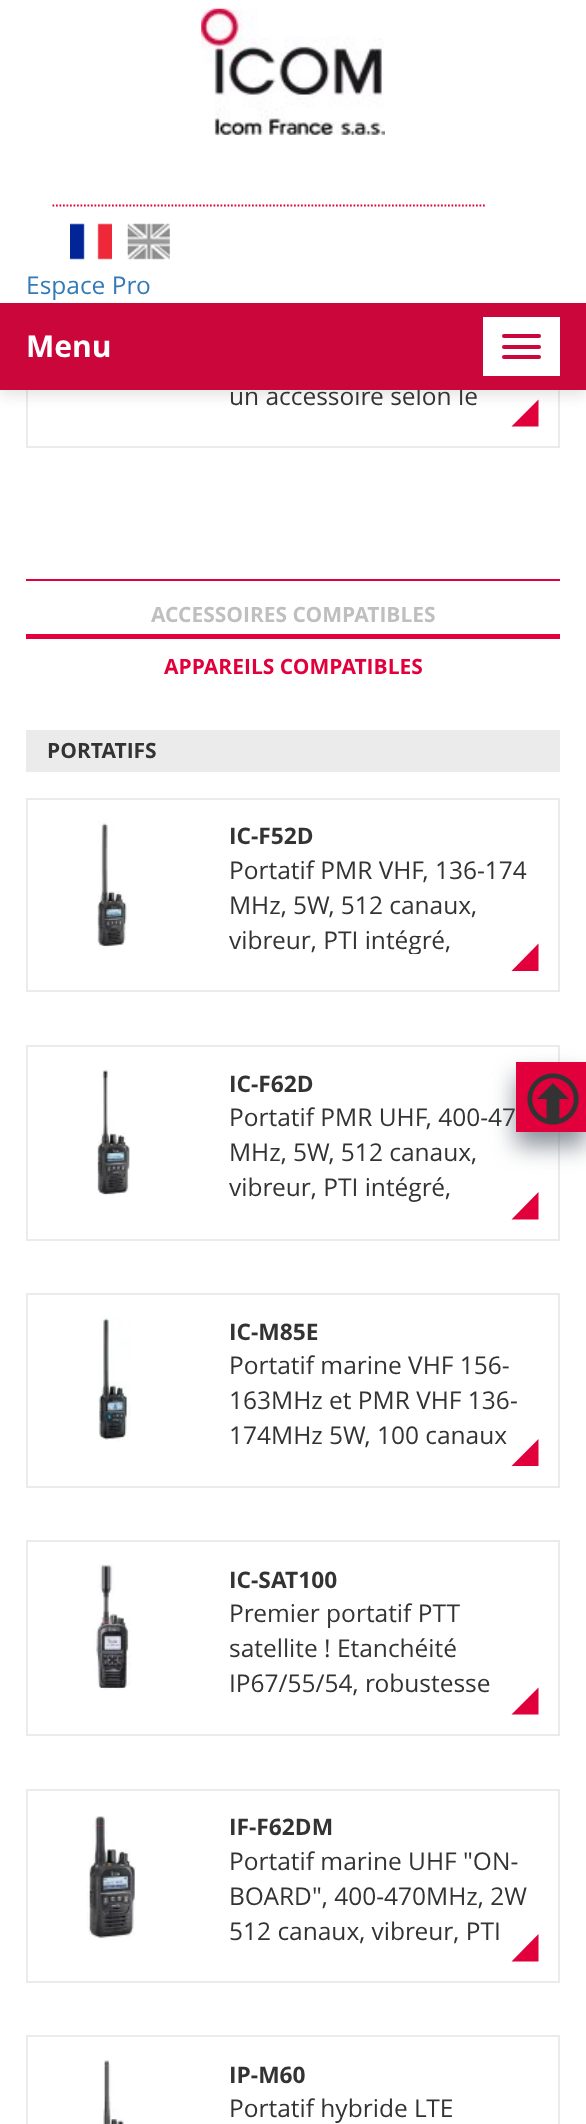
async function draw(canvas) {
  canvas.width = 586
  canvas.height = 2124
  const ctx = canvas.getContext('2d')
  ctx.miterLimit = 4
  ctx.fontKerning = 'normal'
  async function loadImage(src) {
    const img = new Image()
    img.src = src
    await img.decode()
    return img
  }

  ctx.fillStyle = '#fff'
  ctx.fillRect(0, 0, 586, 2124)
  ctx.strokeStyle = '#ebebeb'
  ctx.lineWidth = 2
  ctx.strokeRect(27, 255, 532, 192)
  ctx.fillStyle = '#e2003c'
  ctx.beginPath()
  ctx.moveTo(538.5, 399.5)
  ctx.lineTo(538.5, 426.5)
  ctx.lineTo(511.5, 426.5)
  ctx.closePath()
  ctx.fill()
  ctx.fillStyle = '#0000001a'
  ctx.filter = 'blur(7px)'
  ctx.beginPath()
  ctx.rect(0, 5, 586, 391)
  ctx.fill()
  ctx.filter = 'none'
  ctx.fillStyle = '#fff'
  ctx.fillRect(0, 0, 586, 303)
  ctx.drawImage(await loadImage('image0.png'), 201, 8, 184, 127)
  ctx.beginPath()
  ctx.moveTo(52.5, 205.5)
  ctx.lineTo(486.5, 205.5)
  ctx.strokeStyle = '#e2003c'
  ctx.lineWidth = 1.8
  ctx.setLineDash([1.75, 1.75])
  ctx.stroke()
  ctx.drawImage(await loadImage('image1.png'), 70, 223, 42, 37)
  ctx.drawImage(await loadImage('image2.png'), 127, 223, 43, 37)
  ctx.font = '24.5px Open Sans'
  ctx.fillStyle = '#337ab7'
  ctx.fillText('Espace Pro', 26, 294)
  ctx.fillStyle = '#333'
  ctx.fillText('un accessoire selon le', 229, 405)
  ctx.fillStyle = '#ca063a'
  ctx.fillRect(0, 303, 586, 87)
  ctx.font = 'bold 30px Open Sans'
  ctx.fillStyle = '#fff'
  ctx.fillText('Menu', 26, 357)
  ctx.fillRect(483, 317, 77, 59)
  ctx.fillStyle = '#ca063a'
  ctx.beginPath()
  ctx.roundRect(502, 334, 39, 4, 2)
  ctx.fill()
  ctx.beginPath()
  ctx.roundRect(502, 345, 39, 4, 2)
  ctx.fill()
  ctx.beginPath()
  ctx.roundRect(502, 355, 39, 4, 2)
  ctx.fill()
  ctx.fillStyle = '#e2003c'
  ctx.fillRect(26, 579, 534, 2)
  ctx.font = 'bold 21px Open Sans'
  ctx.fillStyle = '#bfbfbf'
  ctx.fillText('ACCESSOIRES COMPATIBLES', 151, 622)
  ctx.fillStyle = '#e2003c'
  ctx.fillRect(26, 634, 534, 5)
  ctx.fillText('APPAREILS COMPATIBLES', 164, 674)
  ctx.fillStyle = '#ebebeb'
  ctx.fillRect(26, 730, 534, 42)
  ctx.fillStyle = '#333'
  ctx.fillText('PORTATIFS', 47, 758)
  ctx.strokeStyle = '#ebebeb'
  ctx.lineWidth = 2
  ctx.setLineDash([])
  ctx.strokeRect(27, 799, 532, 192)
  ctx.drawImage(await loadImage('image3.png'), 97, 821, 32, 127)
  ctx.font = 'bold 22.75px Open Sans'
  ctx.fillText('IC-F52D', 229, 844)
  ctx.font = '24.5px Open Sans'
  ctx.fillText('Portatif PMR VHF, 136-174', 229, 879)
  ctx.fillText('MHz, 5W, 512 canaux,', 229, 914)
  ctx.save()
  ctx.beginPath()
  ctx.rect(229, 852, 308, 102)
  ctx.clip()
  ctx.fillText('vibreur, PTI intégré,', 229, 949)
  ctx.restore()
  ctx.fillStyle = '#e2003c'
  ctx.beginPath()
  ctx.moveTo(538.5, 943.5)
  ctx.lineTo(538.5, 971)
  ctx.lineTo(511.5, 971)
  ctx.closePath()
  ctx.fill()
  ctx.strokeRect(27, 1046, 532, 194)
  ctx.drawImage(await loadImage('image4.png'), 97, 1069, 33, 127)
  ctx.font = 'bold 22.75px Open Sans'
  ctx.fillStyle = '#333'
  ctx.fillText('IC-F62D', 229, 1092)
  ctx.font = '24.5px Open Sans'
  ctx.fillText('Portatif PMR UHF, 400-47', 229, 1126)
  ctx.fillText('MHz, 5W, 512 canaux,', 229, 1161)
  ctx.fillText('vibreur, PTI intégré,', 229, 1196)
  ctx.fillStyle = '#e2003c'
  ctx.beginPath()
  ctx.moveTo(538.5, 1192)
  ctx.lineTo(538.5, 1219.5)
  ctx.lineTo(511.5, 1219.5)
  ctx.closePath()
  ctx.fill()
  ctx.strokeRect(27, 1294, 532, 193)
  ctx.drawImage(await loadImage('image5.png'), 98, 1316, 33, 125)
  ctx.font = 'bold 22.75px Open Sans'
  ctx.fillStyle = '#333'
  ctx.fillText('IC-M85E', 229, 1340)
  ctx.font = '24.5px Open Sans'
  ctx.fillText('Portatif marine VHF 156-', 229, 1374)
  ctx.fillText('163MHz et PMR VHF 136-', 229, 1409)
  ctx.fillText('174MHz 5W, 100 canaux', 229, 1444)
  ctx.fillStyle = '#e2003c'
  ctx.beginPath()
  ctx.moveTo(538.5, 1439)
  ctx.lineTo(538.5, 1466)
  ctx.lineTo(511.5, 1466)
  ctx.closePath()
  ctx.fill()
  ctx.strokeRect(27, 1541, 532, 194)
  ctx.drawImage(await loadImage('image6.png'), 94, 1564, 37, 126)
  ctx.font = 'bold 22.75px Open Sans'
  ctx.fillStyle = '#333'
  ctx.fillText('IC-SAT100', 229, 1588)
  ctx.font = '24.5px Open Sans'
  ctx.fillText('Premier portatif PTT', 229, 1622)
  ctx.fillText('satellite ! Etanchéité', 229, 1657)
  ctx.fillText('IP67/55/54, robustesse', 229, 1692)
  ctx.fillStyle = '#e2003c'
  ctx.beginPath()
  ctx.moveTo(538.5, 1687.5)
  ctx.lineTo(538.5, 1714.5)
  ctx.lineTo(511.5, 1714.5)
  ctx.closePath()
  ctx.fill()
  ctx.strokeRect(27, 1790, 532, 192)
  ctx.drawImage(await loadImage('image7.png'), 87, 1816, 49, 123)
  ctx.font = 'bold 22.75px Open Sans'
  ctx.fillStyle = '#333'
  ctx.fillText('IF-F62DM', 229, 1835)
  ctx.font = '24.5px Open Sans'
  ctx.fillText('Portatif marine UHF "ON-', 229, 1870)
  ctx.fillText('BOARD", 400-470MHz, 2W', 229, 1905)
  ctx.fillText('512 canaux, vibreur, PTI', 229, 1940)
  ctx.fillStyle = '#e2003c'
  ctx.beginPath()
  ctx.moveTo(538.5, 1934)
  ctx.lineTo(538.5, 1961.5)
  ctx.lineTo(511.5, 1961.5)
  ctx.closePath()
  ctx.fill()
  ctx.strokeRect(27, 2036, 532, 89)
  ctx.drawImage(await loadImage('image8.png'), 103, 2059, 21, 65)
  ctx.font = 'bold 22.75px Open Sans'
  ctx.fillStyle = '#333'
  ctx.fillText('IP-M60', 229, 2083)
  ctx.font = '24.5px Open Sans'
  ctx.fillText('Portatif hybride LTE', 229, 2117)
  ctx.fillStyle = '#58616eb3'
  ctx.filter = 'blur(11.5px)'
  ctx.beginPath()
  ctx.rect(516, 1076, 70, 70)
  ctx.fill()
  ctx.filter = 'none'
  ctx.fillStyle = '#e2003c'
  ctx.fillRect(516, 1062, 70, 70)
  ctx.drawImage(await loadImage('image9.png'), 527, 1073, 52, 52)
}

draw(document.querySelector('canvas'))
